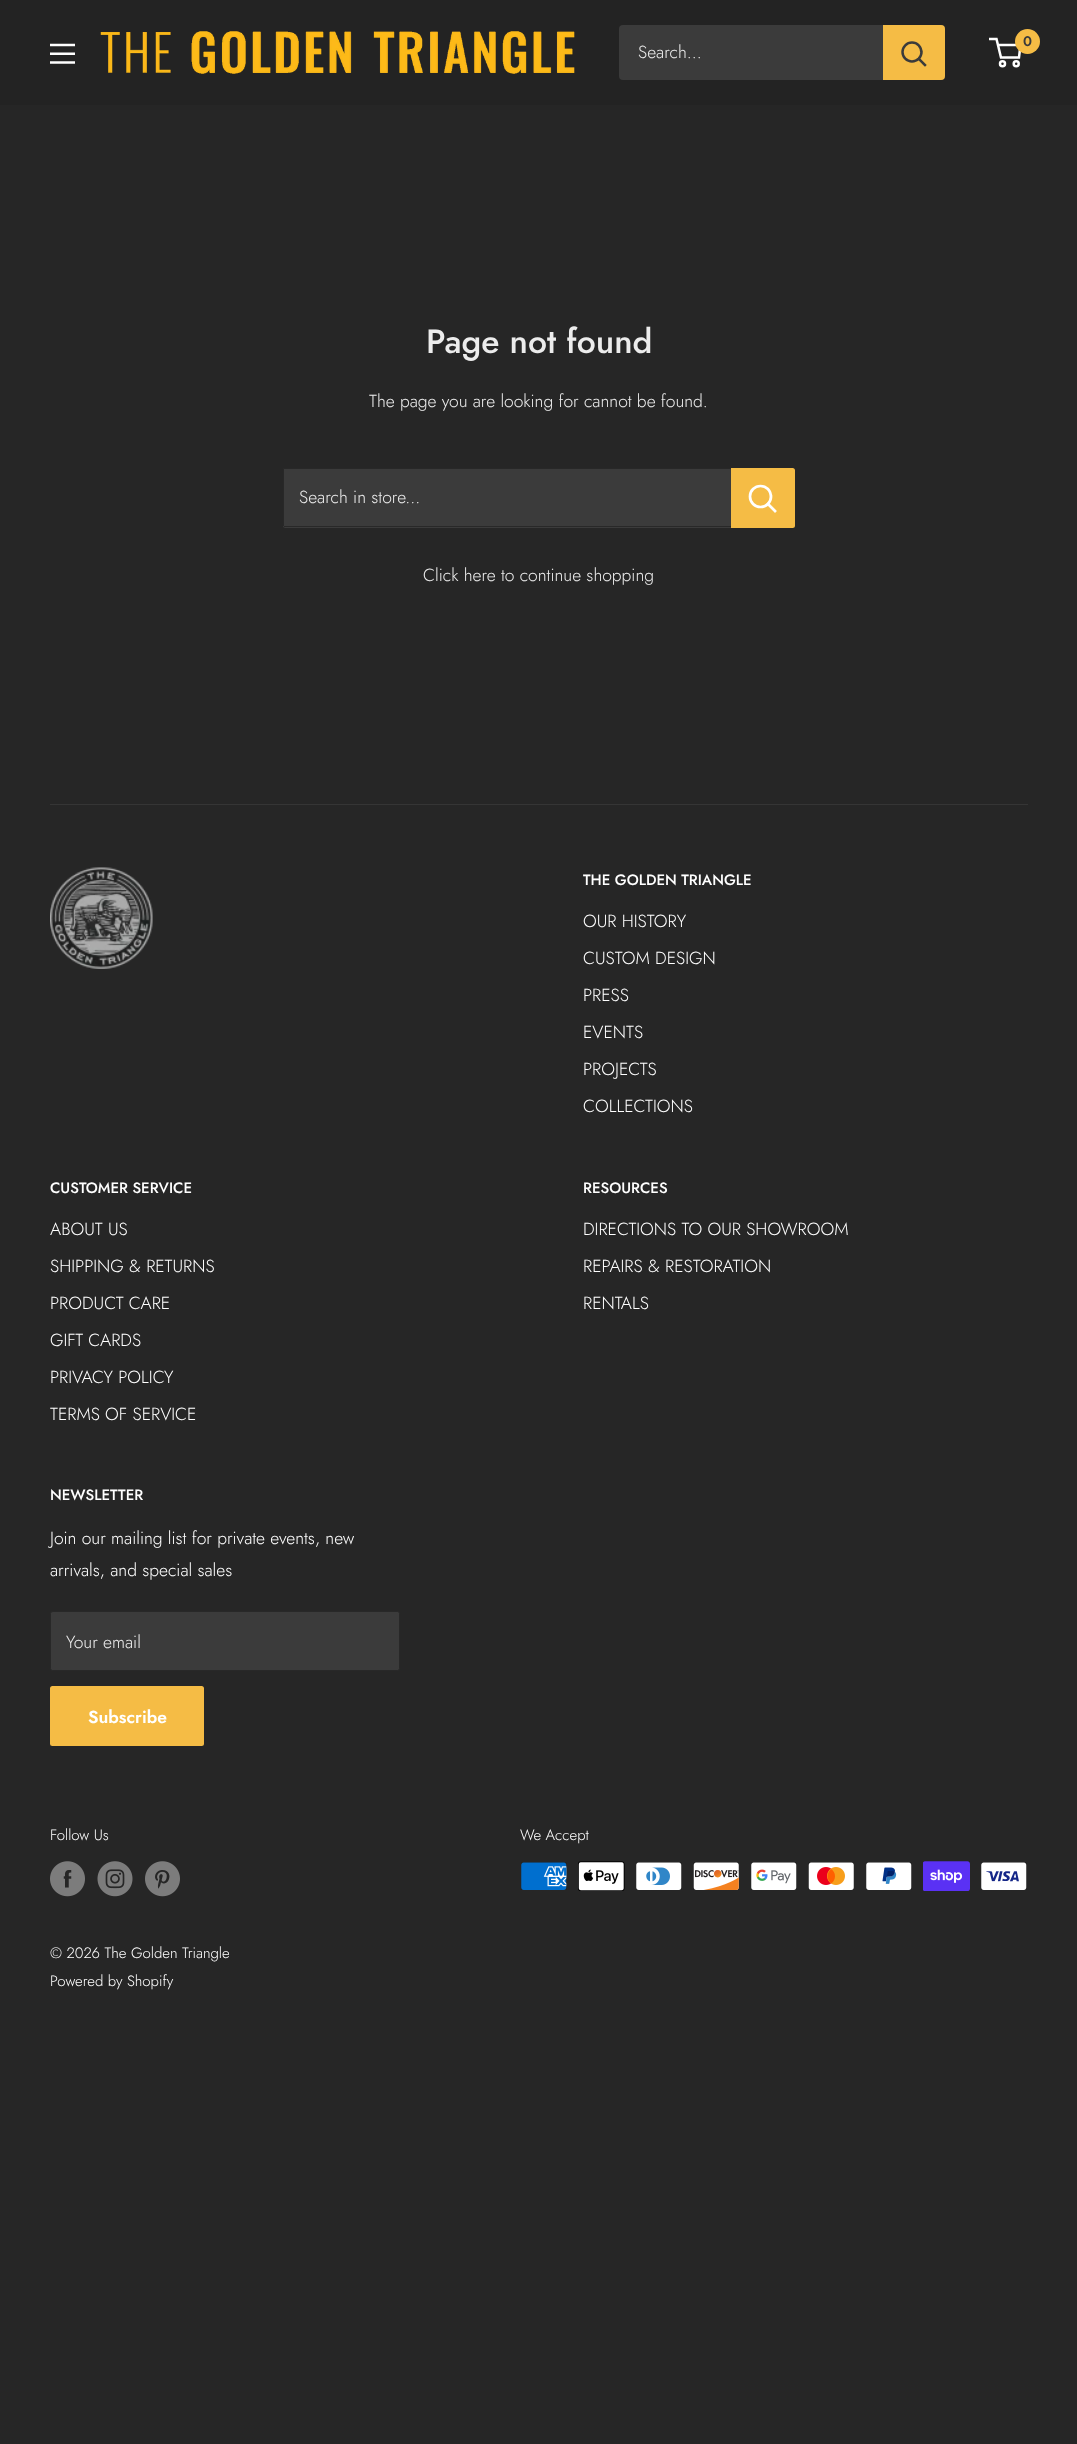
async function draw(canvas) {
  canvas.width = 1077
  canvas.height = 2444
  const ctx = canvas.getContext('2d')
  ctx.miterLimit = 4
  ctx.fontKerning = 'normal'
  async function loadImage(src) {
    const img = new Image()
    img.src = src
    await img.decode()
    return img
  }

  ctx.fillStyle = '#262626'
  ctx.fillRect(0, 0, 1077, 2444)
  ctx.fillStyle = '#232323'
  ctx.fillRect(0, 0, 1077, 105)
  ctx.drawImage(await loadImage('image0.png'), 100, 31, 475, 43)
  ctx.beginPath()
  ctx.arc(1002.5, 63.8, 2.5, 0, 2 * Math.PI)
  ctx.strokeStyle = '#fff'
  ctx.lineWidth = 2.5
  ctx.stroke()
  ctx.beginPath()
  ctx.arc(1016.2, 63.8, 2.5, 0, 2 * Math.PI)
  ctx.stroke()
  ctx.beginPath()
  ctx.moveTo(998, 45)
  ctx.lineTo(1020.5, 45)
  ctx.lineTo(1019, 57.5)
  ctx.lineTo(1001, 57.5)
  ctx.lineTo(996.5, 39)
  ctx.lineTo(989, 39)
  ctx.stroke()
  ctx.fillStyle = '#f5bc45'
  ctx.beginPath()
  ctx.arc(1027.5, 41.5, 12.5, 0, 2 * Math.PI)
  ctx.fill()
  ctx.font = '600 14px Jost'
  ctx.fillStyle = '#3b3b3b'
  ctx.fillText('0', 1023, 46)
  ctx.drawImage(await loadImage('image1.png'), 50, 43, 25, 21)
  ctx.beginPath()
  ctx.roundRect(619, 25, 326, 55, 4)
  ctx.fill()
  ctx.font = '300 17.5px Jost'
  ctx.fillStyle = '#ececec'
  ctx.fillText('Search...', 638, 58)
  ctx.fillStyle = '#f5bc45'
  ctx.beginPath()
  ctx.roundRect(883, 25, 62, 55, [0, 4, 4, 0])
  ctx.fill()
  ctx.beginPath()
  ctx.moveTo(925, 65)
  ctx.lineTo(919, 59)
  ctx.strokeStyle = '#3b3b3b'
  ctx.lineCap = 'square'
  ctx.stroke()
  ctx.beginPath()
  ctx.arc(912, 52, 9.5, 0, 2 * Math.PI)
  ctx.stroke()
  ctx.font = '500 33.75px Jost'
  ctx.fillStyle = '#ececec'
  ctx.fillText('Page not found', 426, 353)
  ctx.font = '300 17.5px Jost'
  ctx.fillText('The page you are looking for cannot be found.', 369, 407)
  ctx.fillStyle = '#3b3b3b'
  ctx.beginPath()
  ctx.roundRect(283, 468, 448, 60, [2.5, 0, 0, 2.5])
  ctx.fill()
  ctx.fillStyle = '#282828'
  ctx.fillRect(284, 468, 447, 1)
  ctx.fillRect(284, 526, 447, 1)
  ctx.fillRect(283, 469, 1, 57)
  ctx.fillStyle = '#ececec'
  ctx.fillText('Search in store...', 299, 503)
  ctx.fillStyle = '#f5bc45'
  ctx.beginPath()
  ctx.roundRect(731, 468, 64, 60, [0, 2.5, 2.5, 0])
  ctx.fill()
  ctx.beginPath()
  ctx.moveTo(775, 511)
  ctx.lineTo(768, 504)
  ctx.strokeStyle = '#fff'
  ctx.lineWidth = 2.7
  ctx.stroke()
  ctx.beginPath()
  ctx.arc(760.5, 496.5, 10.5, 0, 2 * Math.PI)
  ctx.stroke()
  ctx.fillStyle = '#ececec'
  ctx.fillText('Click here to continue shopping', 423, 581)
  ctx.fillStyle = '#353535'
  ctx.fillRect(50, 804, 978, 1)
  ctx.drawImage(await loadImage('image2.png'), 50, 867, 103, 102)
  ctx.font = '500 15px Jost'
  ctx.fillStyle = '#fff'
  ctx.fillText('THE GOLDEN TRIANGLE', 583, 885)
  ctx.font = '300 17.5px Jost'
  ctx.fillText('OUR HISTORY', 583, 927)
  ctx.fillText('CUSTOM DESIGN', 583, 964)
  ctx.fillText('PRESS', 583, 1001)
  ctx.fillText('EVENTS', 583, 1038)
  ctx.fillText('PROJECTS', 583, 1075)
  ctx.fillText('COLLECTIONS', 583, 1112)
  ctx.font = '500 15px Jost'
  ctx.fillText('CUSTOMER SERVICE', 50, 1193)
  ctx.font = '300 17.5px Jost'
  ctx.fillText('ABOUT US', 50, 1235)
  ctx.fillText('SHIPPING & RETURNS', 50, 1272)
  ctx.fillText('PRODUCT CARE', 50, 1309)
  ctx.fillText('GIFT CARDS', 50, 1346)
  ctx.fillText('PRIVACY POLICY', 50, 1383)
  ctx.fillText('TERMS OF SERVICE', 50, 1420)
  ctx.font = '500 15px Jost'
  ctx.fillText('RESOURCES', 583, 1193)
  ctx.font = '300 17.5px Jost'
  ctx.fillText('DIRECTIONS TO OUR SHOWROOM', 583, 1235)
  ctx.fillText('REPAIRS & RESTORATION', 583, 1272)
  ctx.fillText('RENTALS', 583, 1309)
  ctx.font = '500 15px Jost'
  ctx.fillText('NEWSLETTER', 50, 1500)
  ctx.font = '300 17.5px Jost'
  ctx.fillText('Join our mailing list for private events, new', 50, 1544)
  ctx.fillText('arrivals, and special sales', 50, 1576)
  ctx.fillStyle = '#3b3b3b'
  ctx.beginPath()
  ctx.roundRect(50.5, 1611.5, 349, 59, 2)
  ctx.fill()
  ctx.strokeStyle = '#282828'
  ctx.lineWidth = 1
  ctx.stroke()
  ctx.fillStyle = '#ececec'
  ctx.fillText('Your email', 66, 1648)
  ctx.fillStyle = '#f5bc45'
  ctx.beginPath()
  ctx.roundRect(50, 1686, 154, 60, 2.5)
  ctx.fill()
  ctx.font = '600 17.5px Jost'
  ctx.fillStyle = '#fff'
  ctx.fillText('Subscribe', 88, 1723)
  ctx.font = '300 15px Jost'
  ctx.fillText('Follow Us', 50, 1840)
  ctx.drawImage(await loadImage('image3.png'), 50, 1861, 35, 36)
  ctx.drawImage(await loadImage('image4.png'), 97, 1861, 36, 36)
  ctx.drawImage(await loadImage('image5.png'), 145, 1861, 35, 36)
  ctx.fillText('We Accept', 520, 1840)
  ctx.drawImage(await loadImage('image6.png'), 521, 1862, 46, 28)
  ctx.drawImage(await loadImage('image7.png'), 578, 1861, 47, 30)
  ctx.drawImage(await loadImage('image8.png'), 636, 1862, 46, 28)
  ctx.drawImage(await loadImage('image9.png'), 693, 1862, 46, 28)
  ctx.drawImage(await loadImage('image10.png'), 751, 1862, 46, 28)
  ctx.drawImage(await loadImage('image11.png'), 808, 1862, 46, 28)
  ctx.drawImage(await loadImage('image12.png'), 866, 1862, 46, 28)
  ctx.drawImage(await loadImage('image13.png'), 923, 1861, 47, 30)
  ctx.drawImage(await loadImage('image14.png'), 981, 1862, 46, 28)
  ctx.fillText('© 2026 The Golden Triangle', 50, 1958)
  ctx.fillText('Powered by Shopify', 50, 1986)
}

draw(document.querySelector('canvas'))
